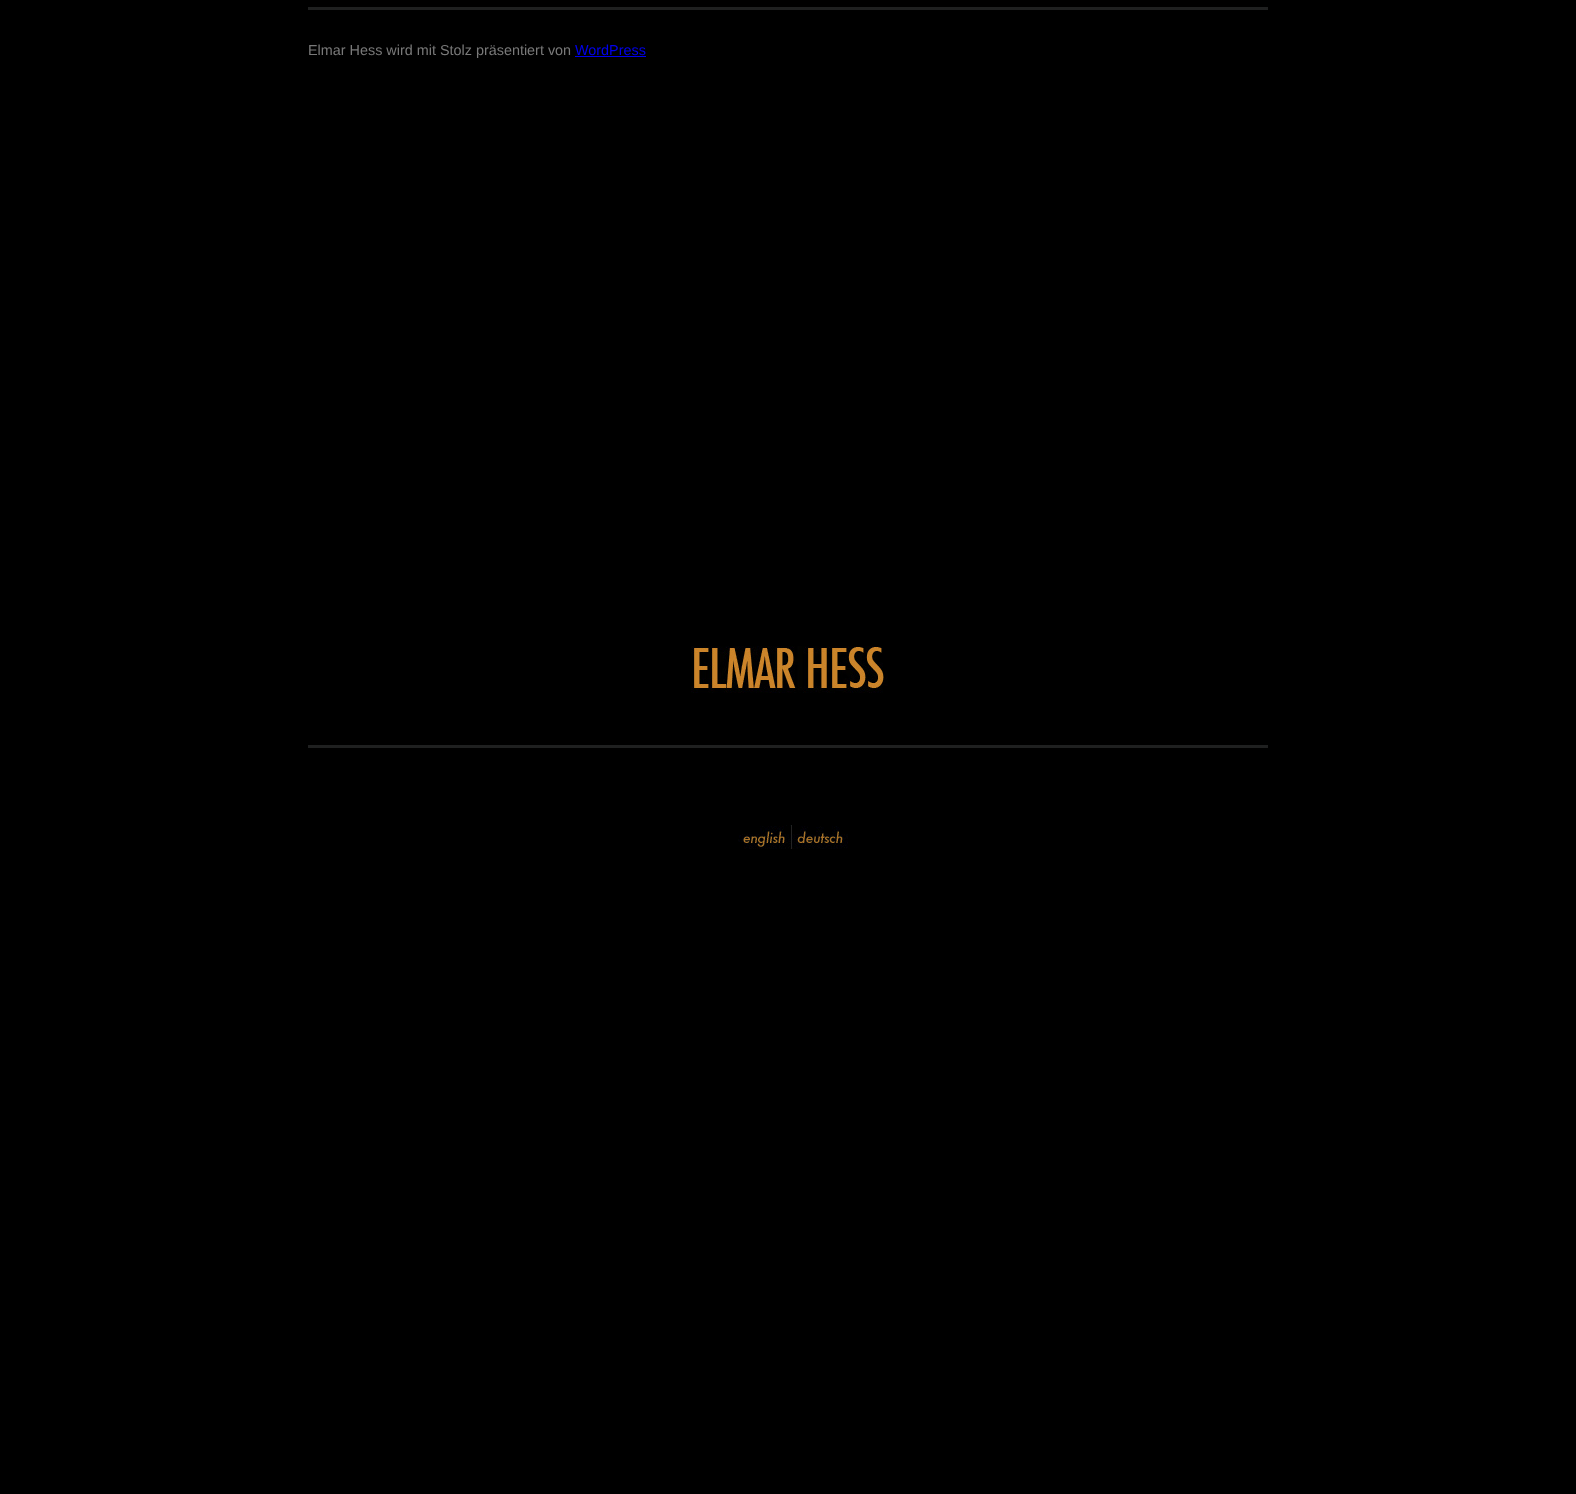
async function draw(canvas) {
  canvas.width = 1576
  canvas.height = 1494
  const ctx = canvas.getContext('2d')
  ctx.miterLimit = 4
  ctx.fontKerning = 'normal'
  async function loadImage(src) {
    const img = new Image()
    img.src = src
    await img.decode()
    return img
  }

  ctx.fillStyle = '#000'
  ctx.fillRect(0, 0, 1576, 1494)
  ctx.fillStyle = '#1f2020'
  ctx.fillRect(308, 7, 960, 3)
  ctx.font = '14.4px Liberation Sans'
  ctx.fillStyle = '#797979'
  ctx.fillText('Elmar Hess wird mit Stolz präsentiert von', 308, 55)
  ctx.fillStyle = '#00e'
  ctx.fillText('WordPress', 575, 55)
  ctx.fillRect(575, 56, 71, 1)
  ctx.drawImage(await loadImage('image0.png'), 691, 646, 197, 47)
  ctx.fillStyle = '#1f2020'
  ctx.fillRect(308, 745, 960, 3)
  ctx.drawImage(await loadImage('image1.png'), 738, 825, 53, 24)
  ctx.fillStyle = '#222'
  ctx.fillRect(791, 825, 1, 24)
  ctx.drawImage(await loadImage('image2.png'), 792, 826, 56, 23)
}

draw(document.querySelector('canvas'))
